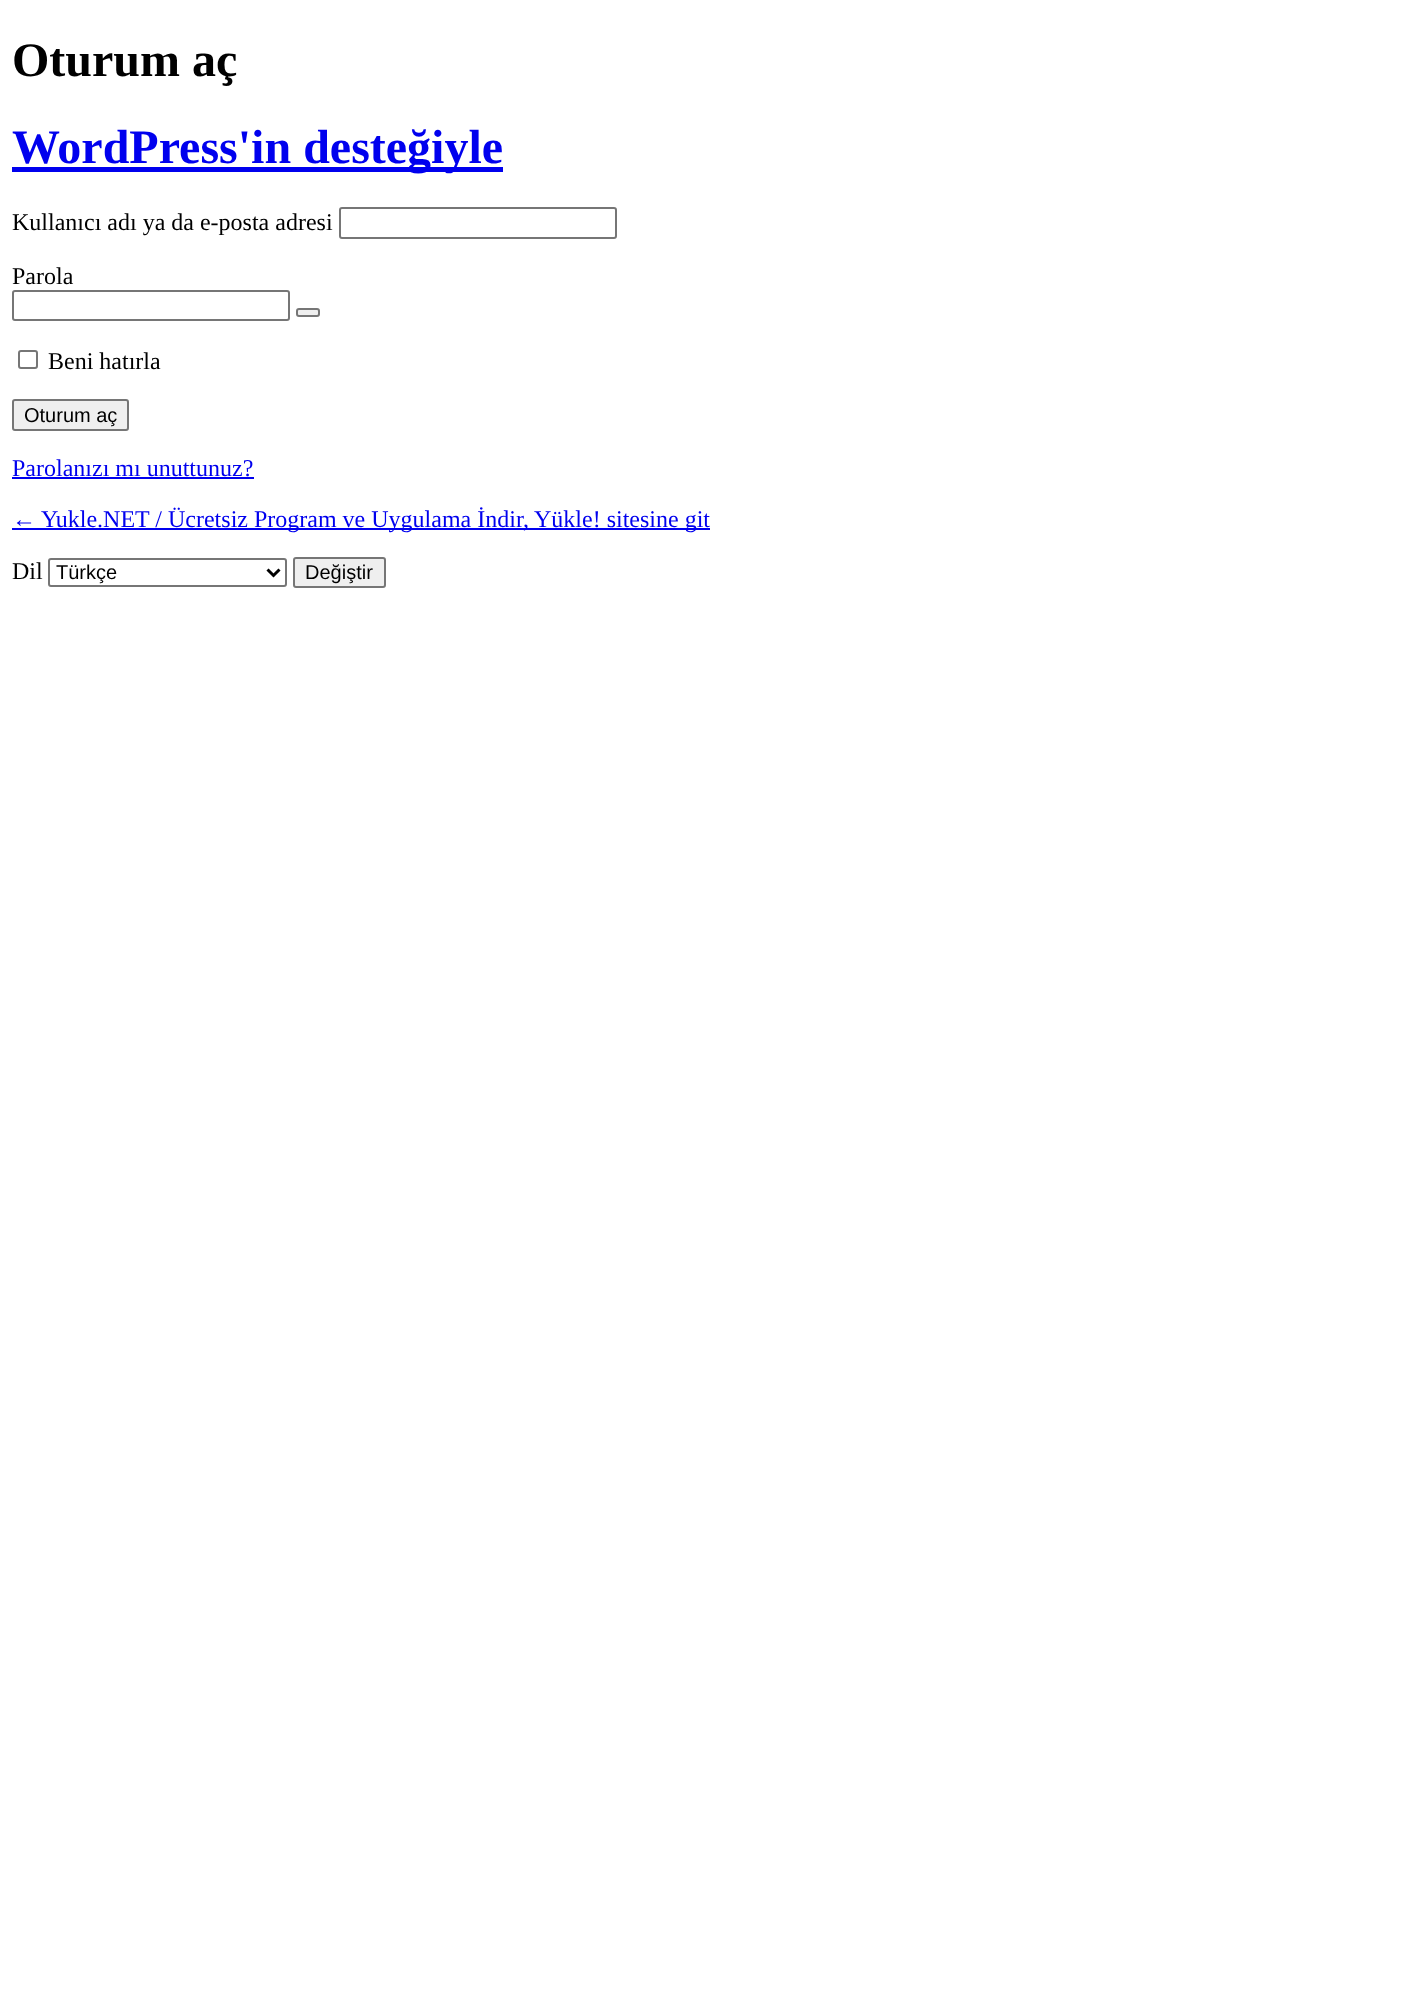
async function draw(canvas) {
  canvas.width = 1411
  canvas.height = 1993
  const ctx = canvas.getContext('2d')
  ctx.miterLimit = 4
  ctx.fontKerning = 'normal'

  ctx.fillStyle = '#fff'
  ctx.fillRect(0, 0, 1411, 1993)
  ctx.font = 'bold 48px Liberation Serif'
  ctx.fillStyle = '#000'
  ctx.fillText('Oturum aç', 12, 76)
  ctx.fillStyle = '#00e'
  ctx.fillRect(12, 167, 491, 5)
  ctx.fillText('WordPress\'in desteğiyle', 12, 163)
  ctx.font = '24px Liberation Serif'
  ctx.fillStyle = '#000'
  ctx.fillText('Kullanıcı adı ya da e-posta adresi', 12, 230)
  ctx.beginPath()
  ctx.roundRect(340, 208, 276, 30, 2)
  ctx.strokeStyle = '#767676'
  ctx.lineWidth = 2
  ctx.stroke()
  ctx.fillText('Parola', 12, 284)
  ctx.beginPath()
  ctx.roundRect(13, 291, 276, 29, 2)
  ctx.stroke()
  ctx.fillStyle = '#efefef'
  ctx.beginPath()
  ctx.roundRect(297, 309, 22, 7, 2)
  ctx.fill()
  ctx.stroke()
  ctx.beginPath()
  ctx.roundRect(19, 351, 18, 17, 2)
  ctx.stroke()
  ctx.fillStyle = '#000'
  ctx.fillText('Beni hatırla', 48, 369)
  ctx.fillStyle = '#efefef'
  ctx.beginPath()
  ctx.roundRect(13, 400, 115, 30, 2)
  ctx.fill()
  ctx.stroke()
  ctx.font = '20px Liberation Sans'
  ctx.fillStyle = '#000'
  ctx.fillText('Oturum aç', 24, 422)
  ctx.font = '24px Liberation Serif'
  ctx.fillStyle = '#00e'
  ctx.fillText('Parolanızı mı unuttunuz?', 12, 476)
  ctx.fillRect(12, 477, 242, 2)
  ctx.fillRect(12, 528, 698, 2)
  ctx.fillText('← Yukle.NET / Ücretsiz Program ve Uygulama İndir, Yükle! sitesine git', 12, 527)
  ctx.fillStyle = '#000'
  ctx.fillText('Dil', 12, 579)
  ctx.beginPath()
  ctx.roundRect(49, 559, 237, 27, 2)
  ctx.stroke()
  ctx.beginPath()
  ctx.moveTo(267.5, 569.5)
  ctx.lineTo(273.5, 575.5)
  ctx.lineTo(279.5, 569.5)
  ctx.strokeStyle = '#000'
  ctx.lineWidth = 3
  ctx.stroke()
  ctx.font = '20px Liberation Sans'
  ctx.fillText('Türkçe', 56, 579)
  ctx.fillStyle = '#efefef'
  ctx.beginPath()
  ctx.roundRect(294, 558, 91, 29, 2)
  ctx.fill()
  ctx.strokeStyle = '#767676'
  ctx.lineWidth = 2
  ctx.stroke()
  ctx.fillStyle = '#000'
  ctx.fillText('Değiştir', 305, 579)
}

draw(document.querySelector('canvas'))
